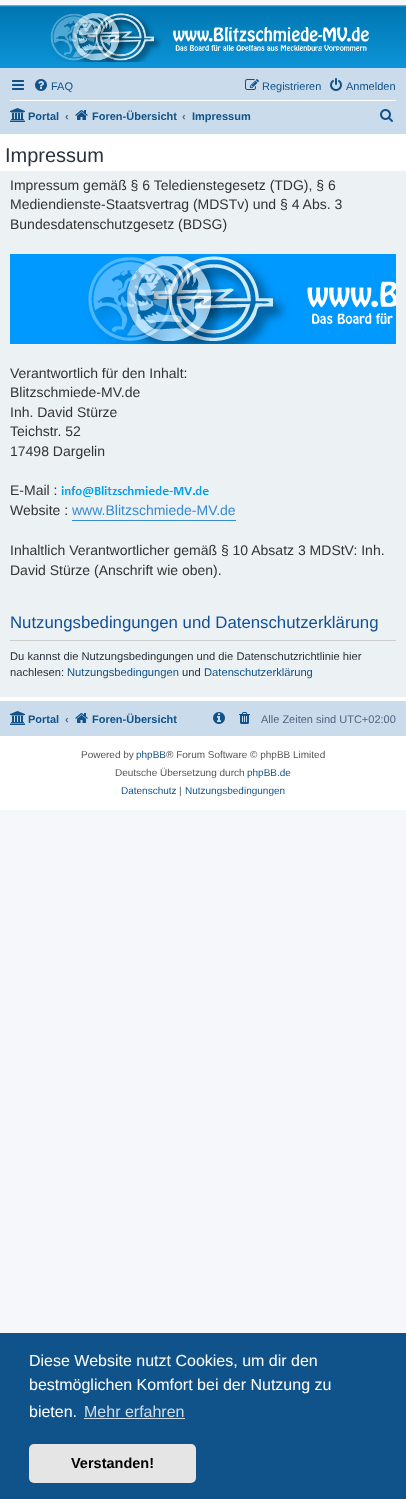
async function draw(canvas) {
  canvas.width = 406
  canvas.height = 1499
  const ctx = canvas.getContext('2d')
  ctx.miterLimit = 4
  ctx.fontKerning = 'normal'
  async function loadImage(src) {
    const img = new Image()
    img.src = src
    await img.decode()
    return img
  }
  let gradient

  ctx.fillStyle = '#f5f7fa'
  ctx.fillRect(0, 0, 406, 1499)
  ctx.fillStyle = '#fff'
  ctx.fillRect(0, 134, 406, 676)
  gradient = ctx.createLinearGradient(203, 5, 203, 97)
  gradient.addColorStop(0, '#6aceff')
  gradient.addColorStop(0.02, '#0076b1')
  gradient.addColorStop(1, '#12a3eb')
  ctx.fillStyle = gradient
  ctx.fillRect(0, 5, 406, 63)
  ctx.drawImage(await loadImage('image0.png'), 50, 12, 319, 50)
  ctx.fillStyle = '#cadceb'
  ctx.fillRect(0, 68, 406, 66)
  ctx.drawImage(await loadImage('image1.png'), 12, 80, 12, 10)
  ctx.drawImage(await loadImage('image2.png'), 35, 79, 12, 12)
  ctx.font = '11px Liberation Sans'
  ctx.fillStyle = '#105289'
  ctx.fillText('FAQ', 51, 90)
  ctx.drawImage(await loadImage('image3.png'), 245, 79, 14, 11)
  ctx.fillText('Registrieren', 262, 90)
  ctx.drawImage(await loadImage('image4.png'), 330, 78, 12, 13)
  ctx.fillText('Anmelden', 346, 90)
  ctx.fillStyle = '#fff'
  ctx.fillRect(10, 100, 386, 1)
  ctx.drawImage(await loadImage('image5.png'), 10, 108, 15, 14)
  ctx.font = 'bold 11px Liberation Sans'
  ctx.fillStyle = '#105289'
  ctx.fillText('Portal', 28, 120)
  ctx.fillStyle = '#536482'
  ctx.fillText('‹', 65, 120)
  ctx.drawImage(await loadImage('image6.png'), 75, 110, 13, 10)
  ctx.fillStyle = '#105289'
  ctx.fillText('Foren-Übersicht', 92, 120)
  ctx.fillStyle = '#536482'
  ctx.fillText('‹', 182, 120)
  ctx.fillStyle = '#105289'
  ctx.fillText('Impressum', 192, 120)
  ctx.drawImage(await loadImage('image7.png'), 380, 109, 13, 13)
  ctx.font = '20px Liberation Sans'
  ctx.fillStyle = '#28313f'
  ctx.fillText('Impressum', 5, 162)
  ctx.fillStyle = '#ecf1f3'
  ctx.fillRect(0, 171, 406, 526)
  ctx.font = '14px Liberation Sans'
  ctx.fillStyle = '#333'
  ctx.fillText('Impressum gemäß § 6 Teledienstegesetz (TDG), § 6', 10, 190)
  ctx.fillText('Mediendienste-Staatsvertrag (MDSTv) und § 4 Abs. 3', 10, 209)
  ctx.fillText('Bundesdatenschutzgesetz (BDSG)', 10, 229)
  ctx.drawImage(await loadImage('image8.png'), 10, 254, 386, 90)
  ctx.fillText('Verantwortlich für den Inhalt:', 10, 378)
  ctx.fillText('Blitzschmiede-MV.de', 10, 397)
  ctx.fillText('Inh. David Stürze', 10, 417)
  ctx.fillText('Teichstr. 52', 10, 436)
  ctx.fillText('17498 Dargelin', 10, 456)
  ctx.fillText('E-Mail :', 10, 495)
  ctx.drawImage(await loadImage('image9.png'), 61, 486, 148, 11)
  ctx.fillText('Website :', 10, 515)
  ctx.fillStyle = '#368ad2'
  ctx.fillRect(72, 520, 164, 1)
  ctx.fillText('www.Blitzschmiede-MV.de', 72, 515)
  ctx.fillStyle = '#333'
  ctx.fillText('Inhaltlich Verantwortlicher gemäß § 10 Absatz 3 MDStV: Inh.', 10, 555)
  ctx.fillText('David Stürze (Anschrift wie oben).', 10, 575)
  ctx.fillStyle = '#ccc'
  ctx.fillRect(10, 640, 386, 1)
  ctx.font = '16.8px Liberation Sans'
  ctx.fillStyle = '#115098'
  ctx.fillText('Nutzungsbedingungen und Datenschutzerklärung', 10, 628)
  ctx.font = '11.2px Liberation Sans'
  ctx.fillStyle = '#28313f'
  ctx.fillText('Du kannst die Nutzungsbedingungen und die Datenschutzrichtlinie hier', 10, 660)
  ctx.fillText('nachlesen:', 10, 676)
  ctx.fillStyle = '#105289'
  ctx.fillText('Nutzungsbedingungen', 67, 676)
  ctx.fillStyle = '#28313f'
  ctx.fillText('und', 182, 676)
  ctx.fillStyle = '#105289'
  ctx.fillText('Datenschutzerklärung', 204, 676)
  ctx.fillStyle = '#cadceb'
  ctx.fillRect(0, 701, 406, 35)
  ctx.drawImage(await loadImage('image5.png'), 10, 711, 15, 14)
  ctx.font = 'bold 11px Liberation Sans'
  ctx.fillStyle = '#105289'
  ctx.fillText('Portal', 28, 723)
  ctx.fillStyle = '#536482'
  ctx.fillText('‹', 65, 723)
  ctx.drawImage(await loadImage('image6.png'), 75, 713, 13, 10)
  ctx.fillStyle = '#105289'
  ctx.fillText('Foren-Übersicht', 92, 723)
  ctx.drawImage(await loadImage('image10.png'), 213, 712, 12, 12)
  ctx.drawImage(await loadImage('image11.png'), 239, 712, 11, 12)
  ctx.font = '11px Liberation Sans'
  ctx.fillStyle = '#536482'
  ctx.fillText('Alle Zeiten sind UTC+02:00', 261, 723)
  ctx.font = '10px Liberation Sans'
  ctx.fillStyle = '#555'
  ctx.fillText('Powered by', 81, 758)
  ctx.fillStyle = '#105289'
  ctx.fillText('phpBB', 136, 758)
  ctx.fillStyle = '#555'
  ctx.fillText('® Forum Software © phpBB Limited', 166, 758)
  ctx.fillText('Deutsche Übersetzung durch', 115, 776)
  ctx.fillStyle = '#105289'
  ctx.fillText('phpBB.de', 247, 776)
  ctx.fillText('Datenschutz', 121, 794)
  ctx.fillStyle = '#555'
  ctx.fillText('|', 179, 794)
  ctx.fillStyle = '#105289'
  ctx.fillText('Nutzungsbedingungen', 185, 794)
  ctx.fillStyle = '#0f538a'
  ctx.fillRect(0, 1333, 406, 166)
  ctx.font = '16px Liberation Sans'
  ctx.fillStyle = '#fff'
  ctx.fillText('Diese Website nutzt Cookies, um dir den', 29, 1366)
  ctx.fillText('bestmöglichen Komfort bei der Nutzung zu', 29, 1390)
  ctx.fillText('bieten.', 29, 1417)
  ctx.fillStyle = '#cfdde8'
  ctx.fillText('Mehr erfahren', 84, 1417)
  ctx.fillRect(84, 1418, 101, 1)
  ctx.fillStyle = '#e5e5e5'
  ctx.beginPath()
  ctx.roundRect(29, 1444, 167, 39, 5)
  ctx.fill()
  ctx.font = 'bold 14.5px Liberation Sans'
  ctx.fillStyle = '#000'
  ctx.fillText('Verstanden!', 71, 1468)
}

draw(document.querySelector('canvas'))
